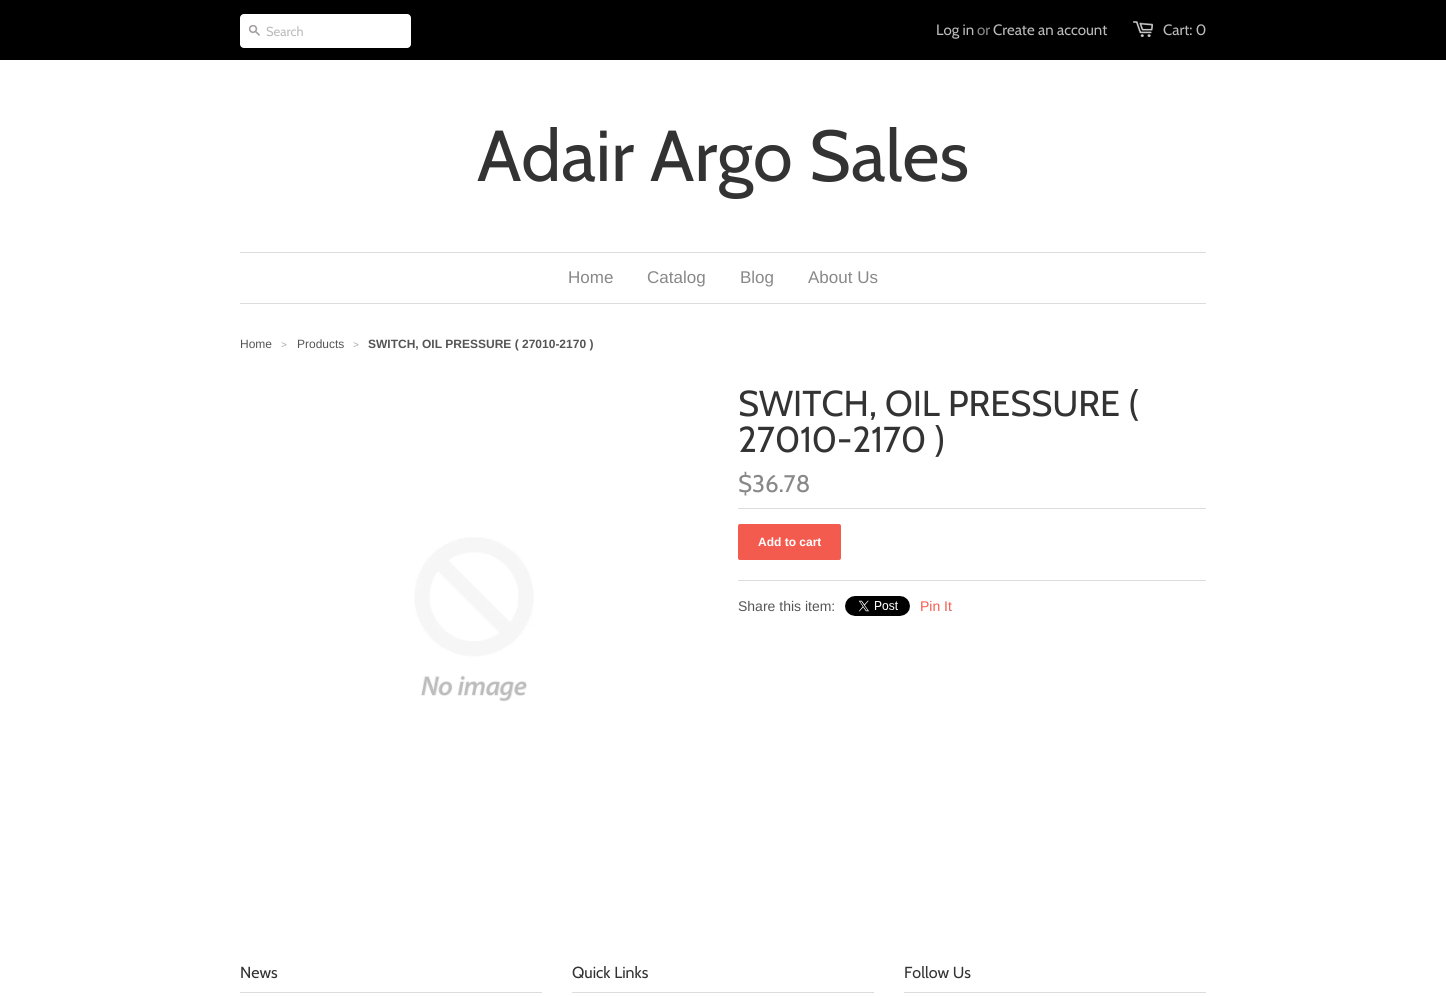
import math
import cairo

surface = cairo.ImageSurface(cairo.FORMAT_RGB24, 1446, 996)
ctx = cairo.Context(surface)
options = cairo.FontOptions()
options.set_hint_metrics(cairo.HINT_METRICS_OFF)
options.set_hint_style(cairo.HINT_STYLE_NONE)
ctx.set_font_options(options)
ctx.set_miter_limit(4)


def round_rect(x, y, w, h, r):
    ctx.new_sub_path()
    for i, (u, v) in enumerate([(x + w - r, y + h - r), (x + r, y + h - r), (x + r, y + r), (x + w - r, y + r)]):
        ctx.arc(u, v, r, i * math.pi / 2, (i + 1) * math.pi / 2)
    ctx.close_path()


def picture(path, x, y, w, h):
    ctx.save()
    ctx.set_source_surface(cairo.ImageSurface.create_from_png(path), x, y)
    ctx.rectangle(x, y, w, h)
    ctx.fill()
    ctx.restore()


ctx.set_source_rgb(1, 1, 1)
ctx.paint()
ctx.set_source_rgb(0, 0, 0)
ctx.rectangle(0, 0, 1446, 60)
ctx.fill()
ctx.set_source_rgb(1, 1, 1)
round_rect(240, 14, 171, 34, 4)
ctx.fill()
picture("img1.png", 249, 25, 11, 11)
ctx.select_font_face("Cabin")
ctx.set_font_size(13)
ctx.set_source_rgb(0.733, 0.733, 0.733)
ctx.move_to(266, 36)
ctx.show_text("Search")
ctx.set_font_size(15)
ctx.move_to(936, 35)
ctx.show_text("Log in")
ctx.set_source_rgb(0.533, 0.533, 0.533)
ctx.move_to(977, 35)
ctx.show_text("or")
ctx.set_source_rgb(0.733, 0.733, 0.733)
ctx.move_to(993, 35)
ctx.show_text("Create an account")
picture("img2.png", 1133, 21, 20, 16)
ctx.move_to(1163, 35)
ctx.show_text("Cart: 0")
ctx.set_font_size(72)
ctx.set_source_rgb(0.2, 0.2, 0.2)
ctx.move_to(477, 181)
ctx.show_text("Adair Argo Sales")
ctx.set_source_rgb(0.867, 0.867, 0.867)
ctx.rectangle(240, 252, 966, 1)
ctx.fill()
ctx.rectangle(240, 303, 966, 1)
ctx.fill()
ctx.select_font_face("Liberation Sans")
ctx.set_font_size(17)
ctx.set_source_rgb(0.533, 0.533, 0.533)
ctx.move_to(568, 283)
ctx.show_text("Home")
ctx.move_to(647, 283)
ctx.show_text("Catalog")
ctx.move_to(740, 283)
ctx.show_text("Blog")
ctx.move_to(808, 283)
ctx.show_text("About Us")
ctx.set_font_size(12)
ctx.set_source_rgb(0.333, 0.333, 0.333)
ctx.move_to(240, 348)
ctx.show_text("Home")
ctx.set_font_size(10)
ctx.set_source_rgb(0.667, 0.667, 0.667)
ctx.move_to(281, 348)
ctx.show_text(">")
ctx.set_font_size(12)
ctx.set_source_rgb(0.333, 0.333, 0.333)
ctx.move_to(297, 348)
ctx.show_text("Products")
ctx.set_font_size(10)
ctx.set_source_rgb(0.667, 0.667, 0.667)
ctx.move_to(353, 348)
ctx.show_text(">")
ctx.select_font_face("Liberation Sans", cairo.FONT_SLANT_NORMAL, cairo.FONT_WEIGHT_BOLD)
ctx.set_font_size(12)
ctx.set_source_rgb(0.333, 0.333, 0.333)
ctx.move_to(368, 348)
ctx.show_text("SWITCH, OIL PRESSURE ( 27010-2170 )")
picture("img3.png", 414, 537, 120, 165)
ctx.select_font_face("Cabin")
ctx.set_font_size(36)
ctx.set_source_rgb(0.2, 0.2, 0.2)
ctx.move_to(738, 416)
ctx.show_text("SWITCH, OIL PRESSURE (")
ctx.move_to(738, 452)
ctx.show_text("27010-2170 )")
ctx.set_font_size(24)
ctx.set_source_rgb(0.533, 0.533, 0.533)
ctx.move_to(738, 492)
ctx.show_text("$36.78")
ctx.set_source_rgb(0.867, 0.867, 0.867)
ctx.rectangle(738, 508, 468, 1)
ctx.fill()
ctx.rectangle(738, 580, 468, 1)
ctx.fill()
ctx.set_source_rgb(0.957, 0.357, 0.31)
round_rect(738, 524, 103, 36, 2)
ctx.fill()
ctx.select_font_face("Liberation Sans", cairo.FONT_SLANT_NORMAL, cairo.FONT_WEIGHT_BOLD)
ctx.set_font_size(12)
ctx.set_source_rgb(1, 1, 1)
ctx.move_to(758, 546)
ctx.show_text("Add to cart")
ctx.select_font_face("Liberation Sans")
ctx.set_font_size(14)
ctx.set_source_rgb(0.333, 0.333, 0.333)
ctx.move_to(738, 611)
ctx.show_text("Share this item:")
picture("img4.png", 845, 596, 65, 20)
ctx.set_source_rgb(0.957, 0.357, 0.31)
ctx.move_to(920, 611)
ctx.show_text("Pin It")
ctx.set_source_rgb(0.867, 0.867, 0.867)
ctx.rectangle(240, 992, 302, 1)
ctx.fill()
ctx.select_font_face("Cabin")
ctx.set_font_size(16)
ctx.set_source_rgb(0.2, 0.2, 0.2)
ctx.move_to(240, 978)
ctx.show_text("News")
ctx.set_source_rgb(0.867, 0.867, 0.867)
ctx.rectangle(572, 992, 302, 1)
ctx.fill()
ctx.set_source_rgb(0.2, 0.2, 0.2)
ctx.move_to(572, 978)
ctx.show_text("Quick Links")
ctx.set_source_rgb(0.867, 0.867, 0.867)
ctx.rectangle(904, 992, 302, 1)
ctx.fill()
ctx.set_source_rgb(0.2, 0.2, 0.2)
ctx.move_to(904, 978)
ctx.show_text("Follow Us")
surface.write_to_png("page.png")
